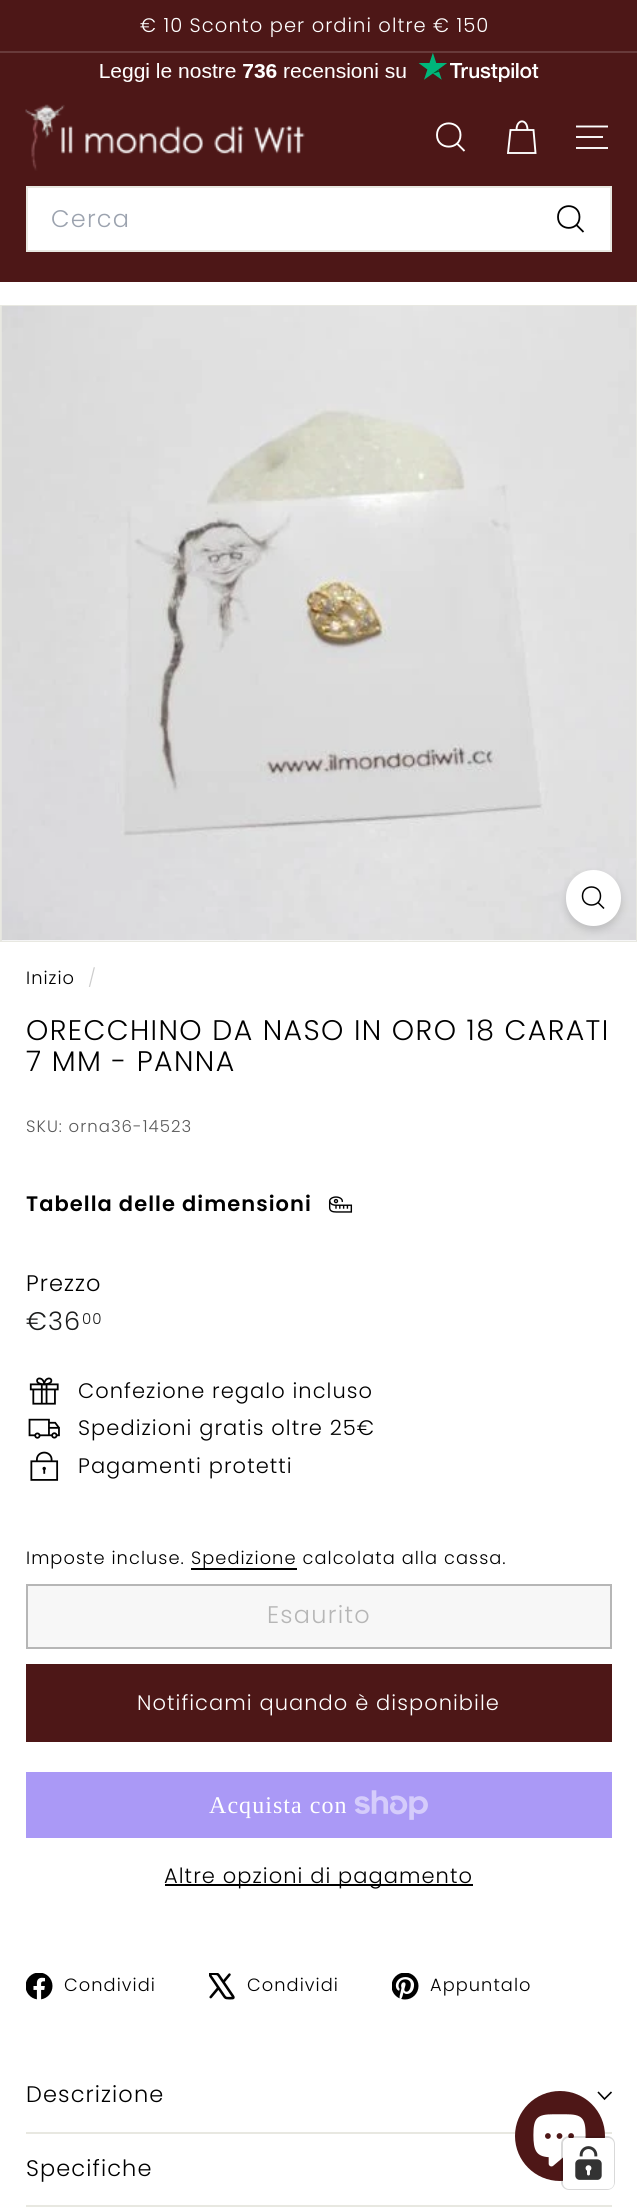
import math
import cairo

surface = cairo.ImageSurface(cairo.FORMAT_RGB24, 637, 2212)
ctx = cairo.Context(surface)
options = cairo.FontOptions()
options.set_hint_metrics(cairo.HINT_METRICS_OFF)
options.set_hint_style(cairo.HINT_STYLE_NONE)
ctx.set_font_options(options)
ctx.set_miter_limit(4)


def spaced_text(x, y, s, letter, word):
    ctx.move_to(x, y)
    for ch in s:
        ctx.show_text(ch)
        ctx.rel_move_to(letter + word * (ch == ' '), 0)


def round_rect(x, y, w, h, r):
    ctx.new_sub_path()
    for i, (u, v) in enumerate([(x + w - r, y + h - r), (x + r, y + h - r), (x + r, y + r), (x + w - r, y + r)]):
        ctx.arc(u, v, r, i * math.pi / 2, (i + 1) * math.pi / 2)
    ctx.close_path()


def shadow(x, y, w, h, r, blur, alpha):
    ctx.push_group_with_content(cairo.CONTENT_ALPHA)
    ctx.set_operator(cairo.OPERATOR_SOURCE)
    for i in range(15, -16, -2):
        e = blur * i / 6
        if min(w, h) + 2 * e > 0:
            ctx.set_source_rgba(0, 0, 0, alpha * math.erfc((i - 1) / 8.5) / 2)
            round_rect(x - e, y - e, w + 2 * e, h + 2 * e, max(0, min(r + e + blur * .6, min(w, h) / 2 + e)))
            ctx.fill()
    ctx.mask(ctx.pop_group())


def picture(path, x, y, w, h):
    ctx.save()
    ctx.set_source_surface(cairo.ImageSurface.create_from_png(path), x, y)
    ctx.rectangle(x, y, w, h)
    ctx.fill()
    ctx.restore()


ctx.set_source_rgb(1, 1, 1)
ctx.paint()
ctx.set_source_rgb(0.302, 0.09, 0.09)
ctx.rectangle(0, 0, 637, 51)
ctx.fill()
ctx.select_font_face("Poppins Light")
ctx.set_font_size(19.5)
ctx.set_source_rgb(1, 1, 1)
spaced_text(140, 32, "€ 10 Sconto per ordini oltre € 150", 1.05, 0)
ctx.set_source_rgb(0.408, 0.227, 0.227)
ctx.rectangle(0, 51, 637, 2)
ctx.fill()
ctx.set_source_rgb(0.302, 0.09, 0.09)
ctx.rectangle(0, 53, 637, 229)
ctx.fill()
picture("img1.png", 100, 53, 439, 29)
picture("img2.png", 25, 104, 280, 67)
ctx.new_path()
ctx.move_to(460.5, 135)
ctx.curve_to(460.5, 150.5, 437, 150.5, 437, 135)
ctx.curve_to(437, 119.5, 460.5, 119.5, 460.5, 135)
ctx.move_to(464.5, 151)
ctx.line_to(457, 143.5)
ctx.set_source_rgb(1, 1, 1)
ctx.set_line_width(1.9)
ctx.stroke()
ctx.new_path()
ctx.move_to(516.5, 130)
ctx.curve_to(516.5, 118.5, 527.5, 118.5, 527.5, 130)
ctx.move_to(510.5, 130)
ctx.line_to(533.5, 130)
ctx.line_to(535.5, 153)
ctx.line_to(508, 153)
ctx.close_path()
ctx.stroke()
ctx.new_path()
ctx.move_to(576, 126.5)
ctx.line_to(608, 126.5)
ctx.stroke()
ctx.set_source_rgb(0.965, 0.953, 0.953)
ctx.rectangle(576, 136, 27, 2)
ctx.fill()
ctx.rectangle(576, 147, 32, 2)
ctx.fill()
ctx.set_source_rgb(1, 1, 1)
ctx.rectangle(27, 187, 584, 64)
ctx.fill_preserve()
ctx.set_source_rgb(0.91, 0.91, 0.882)
ctx.set_line_width(2)
ctx.stroke()
ctx.set_font_size(24)
ctx.set_source_rgb(0.612, 0.639, 0.686)
spaced_text(51, 227, "Cerca", 1.25, 0)
ctx.new_path()
ctx.move_to(579.5, 217)
ctx.curve_to(579.5, 231.5, 558, 231.5, 558, 217)
ctx.curve_to(558, 202.5, 579.5, 202.5, 579.5, 217)
ctx.move_to(583.5, 232)
ctx.line_to(576.5, 225)
ctx.set_source_rgb(0, 0, 0)
ctx.set_line_width(1.8)
ctx.stroke()
ctx.rectangle(1, 306, 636, 635)
ctx.set_source_rgb(0.91, 0.91, 0.882)
ctx.set_line_width(2)
ctx.stroke()
ctx.set_source_rgb(1, 1, 1)
ctx.rectangle(2, 940, 634, 1)
ctx.fill()
picture("img3.png", 1, 306, 635, 635)
ctx.set_source_rgb(0, 0, 0)
shadow(566, 875, 55, 55, 27.5, 4.5, 0.15)
ctx.set_source_rgb(1, 1, 1)
round_rect(566, 870, 55, 56, 27.5)
ctx.fill()
ctx.new_path()
ctx.move_to(600.5, 896)
ctx.curve_to(600.5, 908, 582.5, 908, 582.5, 896)
ctx.curve_to(582.5, 884, 600.5, 884, 600.5, 896)
ctx.move_to(604, 908.5)
ctx.line_to(598, 902.5)
ctx.set_source_rgb(0, 0, 0)
ctx.set_line_width(1.5)
ctx.stroke()
ctx.set_font_size(17.8)
spaced_text(26, 984, "Inizio", 1.05, 0)
ctx.set_source_rgb(0.8, 0.8, 0.8)
spaced_text(88, 984, "/", 1.05, 0)
ctx.set_font_size(28.35)
ctx.set_source_rgb(0, 0, 0)
spaced_text(26, 1040, "ORECCHINO DA NASO IN ORO 18 CARATI", 1.4, 0)
spaced_text(26, 1071, "7 MM - PANNA", 1.4, 0)
ctx.set_font_size(16.5)
ctx.set_source_rgb(0.349, 0.349, 0.349)
spaced_text(26, 1132, "SKU: orna36-14523", 1.05, 0)
ctx.select_font_face("Poppins SemiBold")
ctx.set_font_size(21)
ctx.set_source_rgb(0, 0, 0)
spaced_text(26, 1211, "Tabella delle dimensioni", 1.05, 0)
picture("img4.png", 328, 1196, 25, 17)
ctx.select_font_face("Poppins Light")
ctx.set_font_size(22.5)
spaced_text(26, 1291, "Prezzo", 1.05, 0)
ctx.set_font_size(25.5)
ctx.set_source_rgb(0.11, 0.114, 0.114)
spaced_text(26, 1330, "€36", 1.05, 0)
ctx.set_font_size(15)
spaced_text(82, 1324, "00", 1.05, 0)
picture("img5.png", 29, 1377, 30, 28)
ctx.set_font_size(21)
ctx.set_source_rgb(0, 0, 0)
spaced_text(78, 1398, "Confezione regalo incluso", 1.05, 0)
picture("img6.png", 28, 1418, 32, 21)
spaced_text(78, 1435, "Spedizioni gratis oltre 25€", 1.05, 0)
picture("img7.png", 30, 1451, 29, 30)
spaced_text(78, 1473, "Pagamenti protetti", 1.05, 0)
ctx.set_font_size(17.8)
spaced_text(26, 1564, "Imposte incluse.", 1.05, 0)
ctx.rectangle(191, 1568, 106, 2)
ctx.fill()
spaced_text(191, 1564, "Spedizione calcolata alla cassa.", 1.05, 0)
ctx.set_source_rgb(0.965, 0.965, 0.965)
ctx.rectangle(27, 1585, 584, 63)
ctx.fill_preserve()
ctx.set_source_rgb(0.714, 0.714, 0.714)
ctx.set_line_width(2)
ctx.stroke()
ctx.set_font_size(24)
spaced_text(267, 1623, "Esaurito", 1.25, 0)
ctx.set_source_rgb(0.302, 0.09, 0.09)
ctx.rectangle(26, 1664, 586, 78)
ctx.fill()
ctx.set_font_size(21)
ctx.set_source_rgb(1, 1, 1)
spaced_text(137, 1710, "Notificami quando è disponibile", 1.05, 0)
ctx.set_source_rgb(0.667, 0.6, 0.961)
ctx.rectangle(26, 1772, 586, 66)
ctx.fill()
ctx.select_font_face("Liberation Serif")
ctx.set_font_size(24)
ctx.set_source_rgb(1, 1, 1)
spaced_text(209, 1813, "Acquista con", 1.05, 0)
picture("img8.png", 354, 1790, 74, 30)
ctx.set_source_rgb(0, 0, 0)
ctx.rectangle(165, 1884, 308, 2)
ctx.fill()
ctx.select_font_face("Poppins Light")
ctx.set_font_size(21)
spaced_text(164, 1883, "Altre opzioni di pagamento", 1.05, 0)
picture("img9.png", 26, 1973, 27, 27)
ctx.set_font_size(17.8)
spaced_text(64, 1991, "Condividi", 1.05, 0)
picture("img10.png", 209, 1973, 26, 27)
spaced_text(247, 1991, "Condividi", 1.05, 0)
picture("img11.png", 392, 1973, 27, 27)
spaced_text(430, 1991, "Appuntalo", 1.05, 0)
ctx.set_source_rgb(0.91, 0.91, 0.882)
ctx.rectangle(26, 2132, 586, 2)
ctx.fill()
ctx.set_font_size(22.5)
ctx.set_source_rgb(0, 0, 0)
spaced_text(26, 2102, "Descrizione", 1.1, 0)
ctx.new_path()
ctx.move_to(598, 2092)
ctx.line_to(604.5, 2099)
ctx.line_to(611.5, 2092)
ctx.set_line_width(1.6)
ctx.stroke()
ctx.set_source_rgb(0.91, 0.91, 0.882)
ctx.rectangle(26, 2205, 586, 2)
ctx.fill()
ctx.set_source_rgb(0, 0, 0)
spaced_text(26, 2176, "Specifiche", 1.1, 0)
ctx.set_source_rgb(0.306, 0.09, 0.09)
ctx.new_path()
ctx.arc(560, 2136, 45, 0, 2 * math.pi)
ctx.fill()
picture("img12.png", 533, 2114, 53, 53)
round_rect(562, 2137, 52, 52, 7)
ctx.set_source_rgba(0, 0, 0, 0.15)
ctx.set_line_width(2)
ctx.stroke()
ctx.set_source_rgb(1, 1, 1)
round_rect(563, 2138, 51, 51, 6)
ctx.fill()
picture("img13.png", 575, 2146, 27, 34)
surface.write_to_png("page.png")
